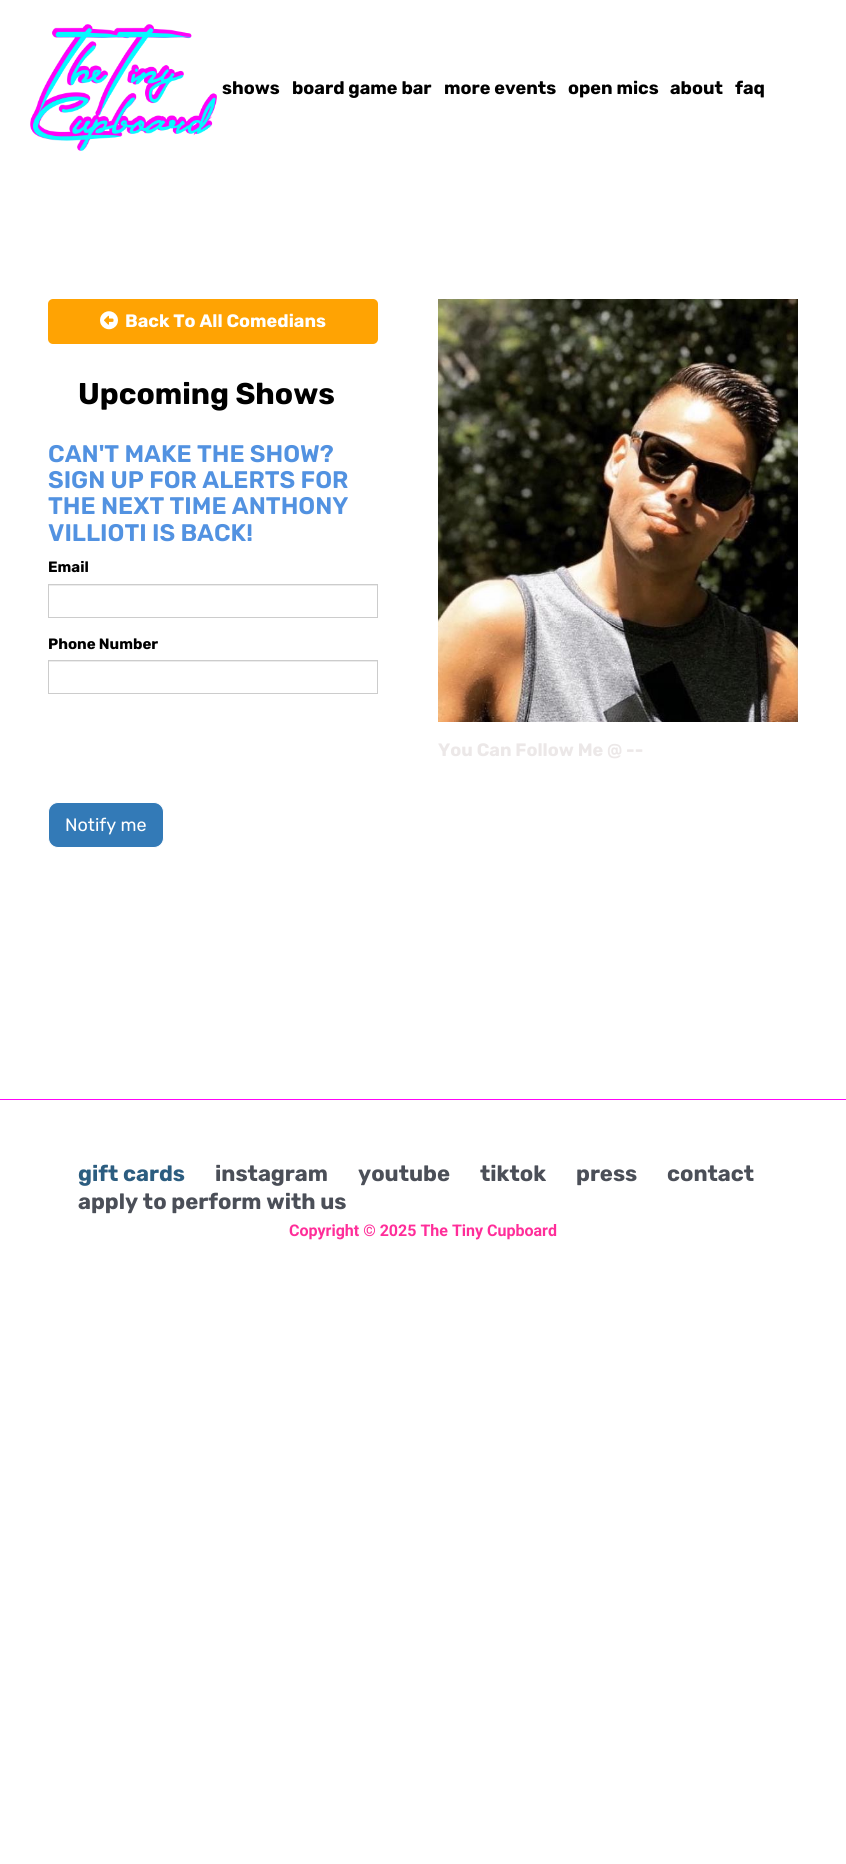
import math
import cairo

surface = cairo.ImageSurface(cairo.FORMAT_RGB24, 846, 1864)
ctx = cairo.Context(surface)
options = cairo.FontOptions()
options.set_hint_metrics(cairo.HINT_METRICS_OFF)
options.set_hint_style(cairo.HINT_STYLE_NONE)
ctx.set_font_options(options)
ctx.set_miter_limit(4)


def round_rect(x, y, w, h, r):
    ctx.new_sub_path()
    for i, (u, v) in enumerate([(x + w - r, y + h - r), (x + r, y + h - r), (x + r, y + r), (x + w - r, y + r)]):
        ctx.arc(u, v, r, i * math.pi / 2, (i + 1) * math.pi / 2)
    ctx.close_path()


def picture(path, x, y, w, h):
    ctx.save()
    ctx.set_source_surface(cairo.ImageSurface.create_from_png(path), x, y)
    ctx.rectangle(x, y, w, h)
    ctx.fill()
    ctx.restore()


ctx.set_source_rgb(1, 1, 1)
ctx.paint()
picture("img1.png", 30, 24, 187, 127)
ctx.select_font_face("Rubik", cairo.FONT_SLANT_NORMAL, cairo.FONT_WEIGHT_BOLD)
ctx.set_font_size(18)
ctx.set_source_rgb(0, 0, 0)
ctx.move_to(222, 94)
ctx.show_text("shows")
ctx.move_to(292, 94)
ctx.show_text("board game bar")
ctx.move_to(444, 94)
ctx.show_text("more events")
ctx.move_to(568, 94)
ctx.show_text("open mics")
ctx.move_to(670, 94)
ctx.show_text("about")
ctx.move_to(735, 94)
ctx.show_text("faq")
ctx.set_source_rgb(1, 0.639, 0.012)
round_rect(48, 299, 330, 45, 5)
ctx.fill()
picture("img2.png", 100, 311, 18, 19)
ctx.set_source_rgb(1, 1, 1)
ctx.move_to(125, 327)
ctx.show_text("Back To All Comedians")
ctx.set_font_size(30)
ctx.set_source_rgb(0, 0, 0)
ctx.move_to(78, 404)
ctx.show_text("Upcoming Shows")
ctx.select_font_face("Rubik SemiBold")
ctx.set_font_size(24)
ctx.set_source_rgb(0.322, 0.573, 0.882)
ctx.move_to(48, 462)
ctx.show_text("CAN'T MAKE THE SHOW?")
ctx.move_to(48, 488)
ctx.show_text("SIGN UP FOR ALERTS FOR")
ctx.move_to(48, 514)
ctx.show_text("THE NEXT TIME ANTHONY")
ctx.move_to(48, 541)
ctx.show_text("VILLIOTI IS BACK!")
ctx.select_font_face("Rubik", cairo.FONT_SLANT_NORMAL, cairo.FONT_WEIGHT_BOLD)
ctx.set_font_size(15)
ctx.set_source_rgb(0, 0, 0)
ctx.move_to(48, 572)
ctx.show_text("Email")
ctx.set_source_rgb(0.925, 0.925, 0.925)
ctx.rectangle(49, 585, 328, 1)
ctx.fill()
ctx.rectangle(48.5, 584.5, 329, 33)
ctx.set_source_rgb(0.8, 0.8, 0.8)
ctx.set_line_width(1)
ctx.stroke()
ctx.set_source_rgb(0, 0, 0)
ctx.move_to(48, 649)
ctx.show_text("Phone Number")
ctx.set_source_rgb(0.925, 0.925, 0.925)
ctx.rectangle(49, 661, 328, 1)
ctx.fill()
ctx.rectangle(48.5, 660.5, 329, 33)
ctx.set_source_rgb(0.8, 0.8, 0.8)
ctx.stroke()
ctx.set_source_rgb(0.2, 0.478, 0.718)
round_rect(48.5, 802.5, 115, 45, 9.5)
ctx.fill_preserve()
ctx.set_source_rgb(1, 1, 1)
ctx.stroke()
ctx.select_font_face("Rubik")
ctx.set_font_size(18)
ctx.move_to(65, 831)
ctx.show_text("Notify me")
picture("img3.png", 438, 299, 360, 423)
ctx.select_font_face("Rubik", cairo.FONT_SLANT_NORMAL, cairo.FONT_WEIGHT_BOLD)
ctx.set_source_rgb(0.922, 0.91, 0.91)
ctx.move_to(438, 756)
ctx.show_text("You Can Follow Me @ --")
ctx.set_source_rgb(1, 0.012, 0.976)
ctx.rectangle(0, 1099, 846, 1)
ctx.fill()
ctx.set_font_size(22)
ctx.set_source_rgb(0.173, 0.365, 0.502)
ctx.move_to(78, 1181)
ctx.show_text("gift cards")
ctx.set_source_rgb(0.294, 0.31, 0.345)
ctx.move_to(215, 1181)
ctx.show_text("instagram")
ctx.move_to(358, 1181)
ctx.show_text("youtube")
ctx.move_to(480, 1181)
ctx.show_text("tiktok")
ctx.move_to(576, 1181)
ctx.show_text("press")
ctx.move_to(667, 1181)
ctx.show_text("contact")
ctx.move_to(78, 1209)
ctx.show_text("apply to perform with us")
ctx.select_font_face("Roboto", cairo.FONT_SLANT_NORMAL, cairo.FONT_WEIGHT_BOLD)
ctx.set_font_size(16)
ctx.set_source_rgb(1, 0.176, 0.6)
ctx.move_to(289, 1236)
ctx.show_text("Copyright © 2025 The Tiny Cupboard")
surface.write_to_png("page.png")
